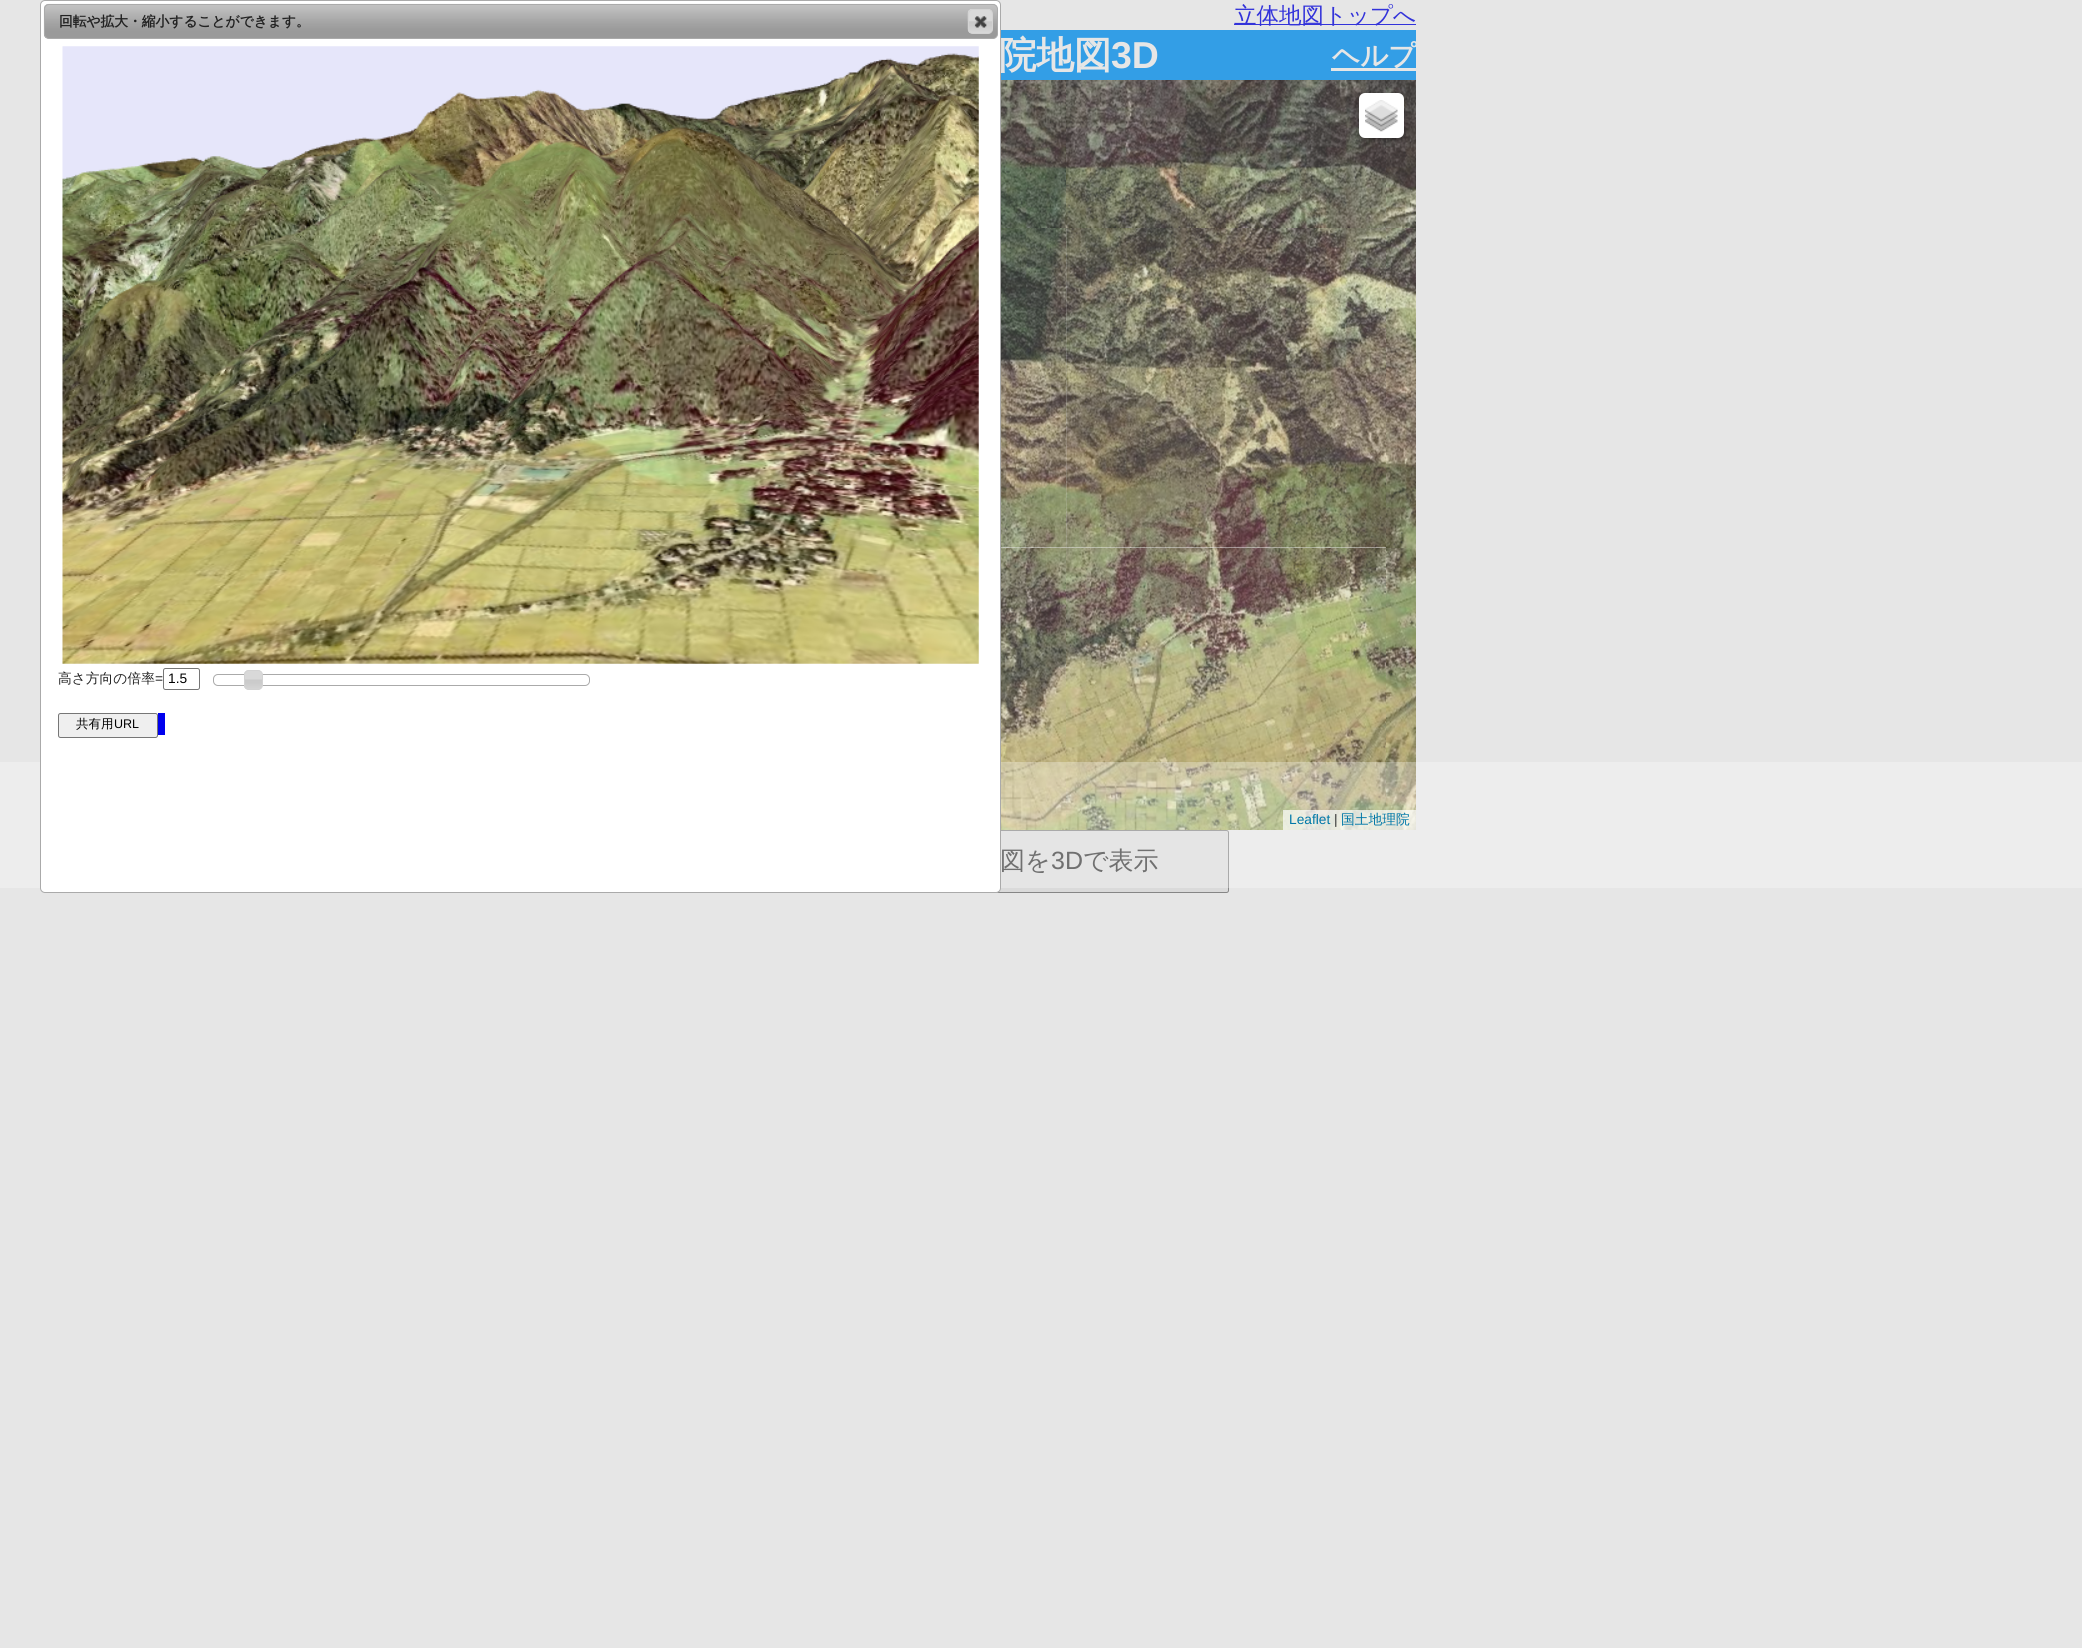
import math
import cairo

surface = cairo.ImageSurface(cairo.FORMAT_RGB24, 2082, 1648)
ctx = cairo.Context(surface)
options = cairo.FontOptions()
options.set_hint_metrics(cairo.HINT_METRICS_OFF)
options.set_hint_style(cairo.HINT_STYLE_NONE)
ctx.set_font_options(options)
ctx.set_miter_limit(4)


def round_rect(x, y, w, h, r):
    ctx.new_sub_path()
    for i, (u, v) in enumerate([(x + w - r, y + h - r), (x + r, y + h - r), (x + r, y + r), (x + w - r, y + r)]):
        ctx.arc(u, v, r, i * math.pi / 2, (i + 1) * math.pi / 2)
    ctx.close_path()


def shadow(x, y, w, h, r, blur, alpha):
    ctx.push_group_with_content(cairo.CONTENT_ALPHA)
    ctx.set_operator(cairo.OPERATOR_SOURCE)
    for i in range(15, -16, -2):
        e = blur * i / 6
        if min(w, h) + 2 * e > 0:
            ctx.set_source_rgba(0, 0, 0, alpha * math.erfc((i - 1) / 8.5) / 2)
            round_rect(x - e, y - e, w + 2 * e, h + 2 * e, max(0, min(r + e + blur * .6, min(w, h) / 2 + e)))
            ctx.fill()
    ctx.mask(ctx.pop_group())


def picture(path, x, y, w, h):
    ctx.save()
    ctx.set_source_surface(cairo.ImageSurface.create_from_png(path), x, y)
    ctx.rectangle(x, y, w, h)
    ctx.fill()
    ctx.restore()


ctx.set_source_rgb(0.902, 0.902, 0.902)
ctx.paint()
ctx.set_source_rgb(0.2, 0.62, 0.902)
ctx.rectangle(1001, 30, 415, 50)
ctx.fill()
ctx.select_font_face("WenQuanYi Zen Hei", cairo.FONT_SLANT_NORMAL, cairo.FONT_WEIGHT_BOLD)
ctx.set_font_size(37.5)
ctx.set_source_rgb(0.902, 0.902, 0.902)
ctx.move_to(999, 68)
ctx.show_text("院地図")
picture("img13.png", 1001, 548, 65, 282)
picture("img14.png", 1066, 548, 320, 282)
picture("img15.png", 1386, 548, 30, 282)
ctx.set_source_rgb(0.855, 0.855, 0.855)
round_rect(854.5, 830.5, 374, 62, 2)
ctx.fill_preserve()
ctx.set_source_rgb(0.525, 0.525, 0.525)
ctx.set_line_width(1)
ctx.stroke()
ctx.select_font_face("WenQuanYi Zen Hei Medium")
ctx.set_font_size(25)
ctx.set_source_rgb(0.2, 0.2, 0.2)
ctx.move_to(1000, 869)
ctx.show_text("図を")
ctx.select_font_face("Liberation Sans")
ctx.move_to(1051, 869)
ctx.show_text("3D")
ctx.select_font_face("WenQuanYi Zen Hei Medium")
ctx.move_to(1083, 869)
ctx.show_text("で表示")
ctx.set_source_rgba(1, 1, 1, 0.3)
ctx.rectangle(0, 762, 2082, 126)
ctx.fill()
ctx.set_source_rgb(1, 1, 1)
round_rect(40.5, 0.5, 960, 892, 4.5)
ctx.fill_preserve()
ctx.set_source_rgb(0.667, 0.667, 0.667)
ctx.stroke()
picture("img10.png", 1001, 228, 66, 320)
picture("img1.png", 1001, 384, 1, 125)
picture("img2.png", 43, 3, 955, 36)
round_rect(44.5, 4.5, 953, 34, 4.5)
ctx.stroke()
ctx.select_font_face("WenQuanYi Zen Hei", cairo.FONT_SLANT_NORMAL, cairo.FONT_WEIGHT_BOLD)
ctx.set_font_size(13.75)
ctx.set_source_rgb(0.133, 0.133, 0.133)
ctx.move_to(59, 26)
ctx.show_text("回転や拡大・縮小することができます。")
picture("img3.png", 967, 9, 26, 25)
round_rect(968.5, 9.5, 24, 24, 4.5)
ctx.set_source_rgb(0.827, 0.827, 0.827)
ctx.stroke()
picture("img4.png", 974, 16, 13, 12)
picture("img5.png", 62, 46, 917, 618)
ctx.select_font_face("WenQuanYi Zen Hei Medium")
ctx.set_source_rgb(0.133, 0.133, 0.133)
ctx.move_to(58, 683)
ctx.show_text("高さ方向の倍率")
ctx.select_font_face("Liberation Sans")
ctx.move_to(155, 683)
ctx.show_text("=")
round_rect(163.5, 668.5, 36, 21, 2)
ctx.set_source_rgb(0.463, 0.463, 0.463)
ctx.stroke()
ctx.set_source_rgb(0, 0, 0)
ctx.move_to(168, 683)
ctx.show_text("1.5")
round_rect(213.5, 674.5, 376, 11, 4.5)
ctx.set_source_rgb(0.667, 0.667, 0.667)
ctx.stroke()
picture("img6.png", 244, 670, 19, 20)
round_rect(244.5, 670.5, 18, 19, 4.5)
ctx.set_source_rgb(0.827, 0.827, 0.827)
ctx.stroke()
ctx.set_source_rgb(0.937, 0.937, 0.937)
round_rect(58.5, 713.5, 99, 24, 2)
ctx.fill_preserve()
ctx.set_source_rgb(0.463, 0.463, 0.463)
ctx.stroke()
ctx.select_font_face("WenQuanYi Zen Hei Medium")
ctx.set_font_size(12.5)
ctx.set_source_rgb(0, 0, 0)
ctx.move_to(76, 728)
ctx.show_text("共有用")
ctx.select_font_face("Liberation Sans")
ctx.move_to(114, 728)
ctx.show_text("URL")
ctx.set_source_rgb(0, 0, 0.933)
ctx.rectangle(158, 713, 7, 22)
ctx.fill()
ctx.set_source_rgb(0.2, 0.2, 0.855)
ctx.rectangle(1234, 24, 182, 1)
ctx.fill()
ctx.select_font_face("WenQuanYi Zen Hei Medium")
ctx.set_font_size(22.5)
ctx.move_to(1234, 23)
ctx.show_text("立体地図トップへ")
ctx.select_font_face("Liberation Sans", cairo.FONT_SLANT_NORMAL, cairo.FONT_WEIGHT_BOLD)
ctx.set_font_size(37.5)
ctx.set_source_rgb(0.902, 0.902, 0.902)
ctx.move_to(1111, 68)
ctx.show_text("3D")
ctx.rectangle(1331, 68, 85, 3)
ctx.fill()
ctx.select_font_face("WenQuanYi Zen Hei", cairo.FONT_SLANT_NORMAL, cairo.FONT_WEIGHT_BOLD)
ctx.set_font_size(27.5)
ctx.move_to(1332, 65)
ctx.show_text("ヘルプ")
picture("img7.png", 1001, 80, 65, 148)
picture("img8.png", 1066, 80, 320, 148)
picture("img9.png", 1386, 80, 30, 148)
picture("img11.png", 1066, 228, 320, 320)
picture("img12.png", 1386, 228, 30, 320)
ctx.set_source_rgb(0, 0, 0)
shadow(1359, 94, 45, 45, 6, 3, 0.4)
ctx.set_source_rgb(1, 1, 1)
round_rect(1359, 93, 45, 45, 6)
ctx.fill()
picture("img16.png", 1365, 100, 33, 32)
ctx.set_source_rgba(1, 1, 1, 0.7)
ctx.rectangle(1283, 810, 133, 20)
ctx.fill()
ctx.select_font_face("Liberation Sans")
ctx.set_font_size(13.75)
ctx.set_source_rgb(0, 0.471, 0.659)
ctx.move_to(1289, 824)
ctx.show_text("Leaflet")
ctx.set_source_rgb(0.2, 0.2, 0.2)
ctx.move_to(1334, 824)
ctx.show_text("|")
ctx.select_font_face("WenQuanYi Zen Hei Medium")
ctx.set_source_rgb(0, 0.471, 0.659)
ctx.move_to(1341, 824)
ctx.show_text("国土地理院")
surface.write_to_png("page.png")
